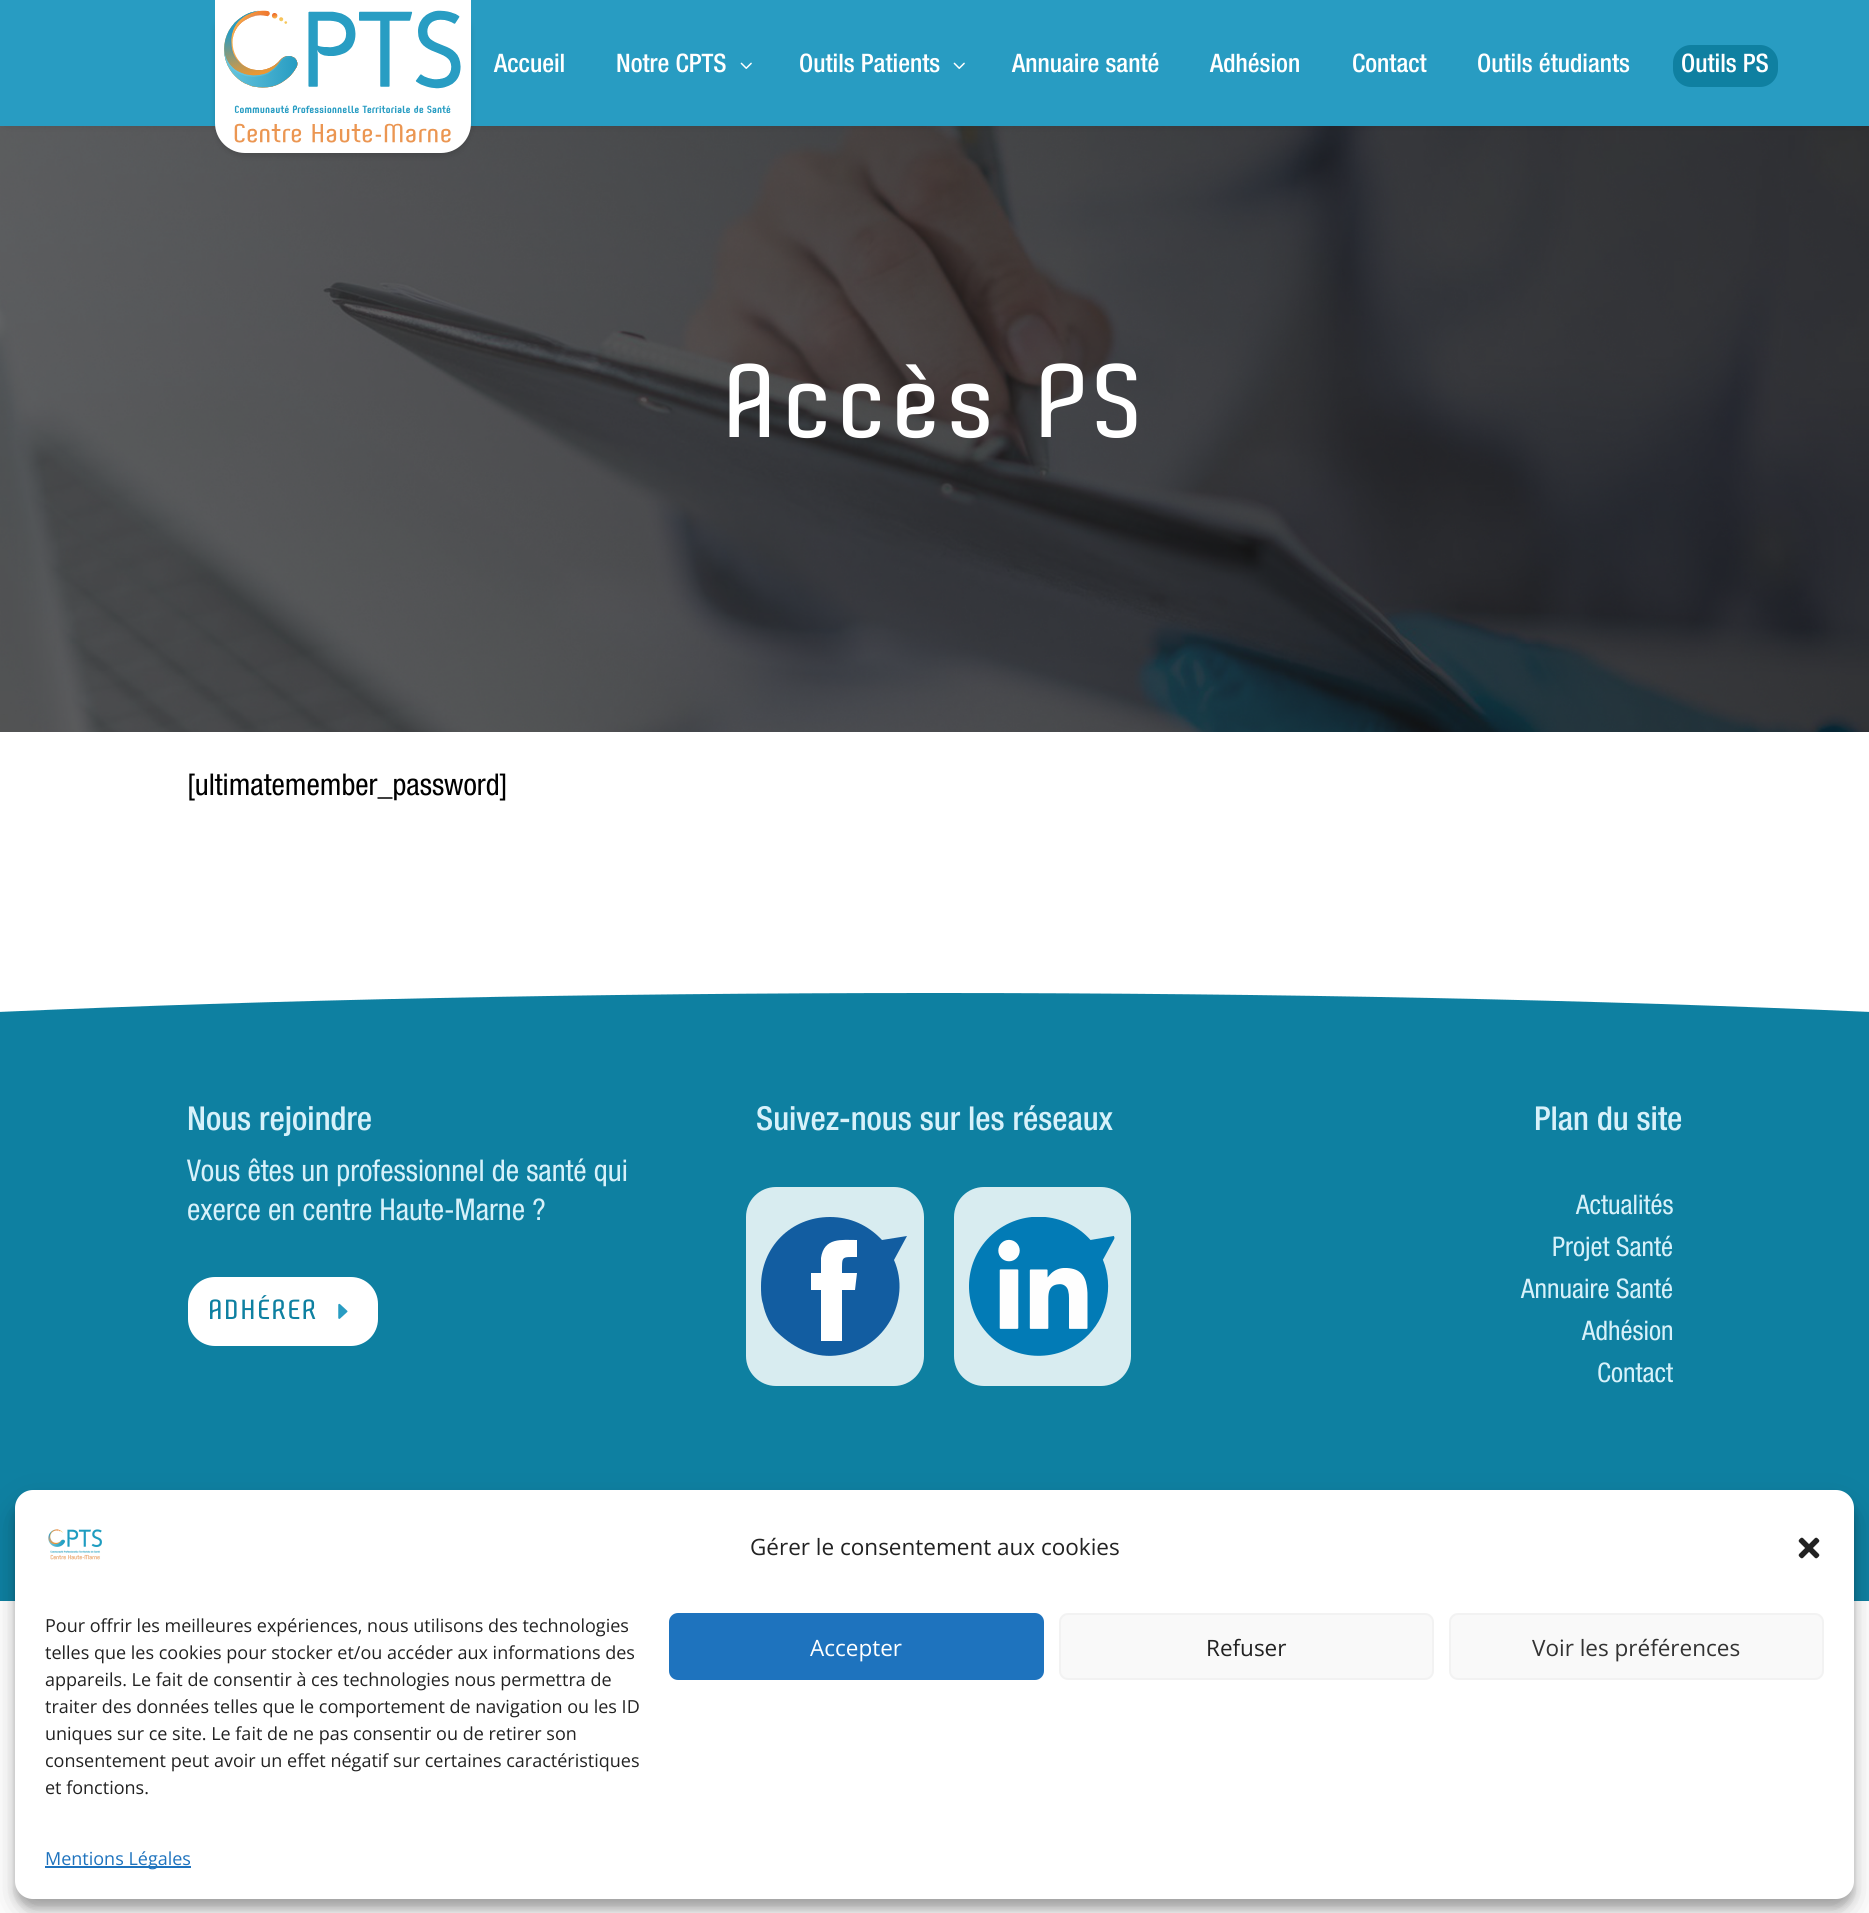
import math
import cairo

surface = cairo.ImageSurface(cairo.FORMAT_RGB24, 1869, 1913)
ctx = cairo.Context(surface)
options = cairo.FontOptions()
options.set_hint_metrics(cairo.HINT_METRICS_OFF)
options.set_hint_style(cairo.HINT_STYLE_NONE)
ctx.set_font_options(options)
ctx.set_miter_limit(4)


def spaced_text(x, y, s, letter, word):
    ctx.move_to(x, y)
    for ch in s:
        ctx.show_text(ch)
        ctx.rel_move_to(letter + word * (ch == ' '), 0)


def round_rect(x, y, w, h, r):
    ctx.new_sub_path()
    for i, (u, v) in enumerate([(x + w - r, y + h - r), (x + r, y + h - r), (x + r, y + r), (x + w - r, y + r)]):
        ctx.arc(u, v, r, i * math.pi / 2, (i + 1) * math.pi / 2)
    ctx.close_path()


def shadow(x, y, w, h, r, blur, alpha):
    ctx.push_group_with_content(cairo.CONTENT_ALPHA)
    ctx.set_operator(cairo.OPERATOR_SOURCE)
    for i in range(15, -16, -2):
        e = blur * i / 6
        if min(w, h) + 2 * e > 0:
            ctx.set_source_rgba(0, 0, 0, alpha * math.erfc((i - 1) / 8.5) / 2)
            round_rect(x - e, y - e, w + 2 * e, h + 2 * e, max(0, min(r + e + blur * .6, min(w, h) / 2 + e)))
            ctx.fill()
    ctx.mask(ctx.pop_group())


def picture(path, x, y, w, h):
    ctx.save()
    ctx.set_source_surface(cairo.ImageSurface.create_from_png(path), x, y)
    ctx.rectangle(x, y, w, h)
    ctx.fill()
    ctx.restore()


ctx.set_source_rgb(1, 1, 1)
ctx.paint()
picture("img3.png", 0, 126, 1869, 606)
ctx.set_source_rgb(0, 0, 0)
shadow(9, 11, 1851, 108, 0, 7, 0.3)
ctx.set_source_rgb(0.157, 0.612, 0.761)
ctx.rectangle(0, 0, 1869, 126)
ctx.fill()
ctx.set_source_rgb(0, 0, 0)
shadow(215, 3, 256, 153, 30, 3, 0.13)
ctx.set_source_rgb(1, 1, 1)
ctx.new_path()
ctx.move_to(215, 0)
ctx.line_to(471, 0)
ctx.line_to(471, 123)
ctx.curve_to(471, 139.5, 457.5, 153, 441, 153)
ctx.line_to(245, 153)
ctx.curve_to(228.5, 153, 215, 139.5, 215, 123)
ctx.close_path()
ctx.fill()
picture("img1.png", 224, 10, 237, 133)
ctx.select_font_face("Helvetica Neue Medium")
ctx.set_font_size(25.5)
ctx.move_to(494, 72)
ctx.show_text("Accueil")
ctx.move_to(616, 72)
ctx.show_text("Notre CPTS")
picture("img2.png", 740, 62, 12, 7)
ctx.move_to(799, 72)
ctx.show_text("Outils Patients")
picture("img2.png", 953, 62, 12, 7)
ctx.move_to(1012, 72)
ctx.show_text("Annuaire santé")
ctx.move_to(1210, 72)
ctx.show_text("Adhésion")
ctx.move_to(1352, 72)
ctx.show_text("Contact")
ctx.move_to(1477, 72)
ctx.show_text("Outils étudiants")
ctx.set_source_rgb(0.059, 0.502, 0.631)
round_rect(1673, 45, 105, 42, 18)
ctx.fill()
ctx.set_source_rgb(1, 1, 1)
ctx.move_to(1681, 72)
ctx.show_text("Outils PS")
ctx.select_font_face("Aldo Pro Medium")
ctx.set_font_size(112.5)
spaced_text(722, 437, "Accès PS", 4.5, 0)
ctx.select_font_face("Helvetica Neue")
ctx.set_font_size(30)
ctx.set_source_rgb(0, 0, 0)
ctx.move_to(187, 795)
ctx.show_text("[ultimatemember_password]")
ctx.set_source_rgb(0.055, 0.502, 0.631)
ctx.rectangle(0, 993, 1869, 608)
ctx.fill()
ctx.save()
ctx.rectangle(0, 921, 1869, 147)
ctx.clip()
ctx.set_source_rgb(1, 1, 1)
ctx.new_path()
ctx.move_to(-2, 1012)
ctx.line_to(-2, 918)
ctx.line_to(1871, 918)
ctx.line_to(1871, 1012)
ctx.curve_to(1601, 1000, 1279, 993, 934, 993)
ctx.curve_to(589, 993, 268, 1000, -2, 1012)
ctx.close_path()
ctx.fill()
ctx.restore()
ctx.select_font_face("Helvetica Neue Medium")
ctx.set_font_size(33)
ctx.set_source_rgb(0.843, 0.945, 0.98)
ctx.move_to(187, 1130)
ctx.show_text("Nous rejoindre")
ctx.select_font_face("Helvetica Neue")
ctx.set_font_size(30)
ctx.move_to(187, 1181)
ctx.show_text("Vous êtes un professionnel de santé qui")
ctx.move_to(187, 1220)
ctx.show_text("exerce en centre Haute-Marne ?")
ctx.set_source_rgb(1, 1, 1)
round_rect(188, 1277, 190, 69, 27)
ctx.fill()
ctx.select_font_face("Aldo Pro Medium")
ctx.set_source_rgb(0.055, 0.502, 0.631)
spaced_text(208, 1319, "ADHÉRER", 1.5, 0)
picture("img4.png", 338, 1303, 10, 16)
ctx.select_font_face("Helvetica Neue Medium")
ctx.set_font_size(33)
ctx.set_source_rgb(0.843, 0.945, 0.98)
ctx.move_to(756, 1130)
ctx.show_text("Suivez-nous sur les réseaux")
ctx.set_source_rgb(0.847, 0.922, 0.941)
round_rect(746, 1187, 178, 199, 30)
ctx.fill()
ctx.set_source_rgb(0.071, 0.365, 0.631)
ctx.new_path()
ctx.move_to(882, 1240)
ctx.line_to(907, 1236)
ctx.line_to(894, 1260)
ctx.curve_to(912, 1301, 884, 1349, 840, 1355)
ctx.curve_to(816, 1359, 795, 1349, 778, 1333)
ctx.curve_to(770, 1326, 765, 1314, 763, 1304)
ctx.curve_to(761, 1298, 761, 1292, 761, 1286)
ctx.curve_to(761, 1247, 791, 1217, 830, 1217)
ctx.curve_to(850, 1217, 868, 1225, 882, 1240)
ctx.close_path()
ctx.fill()
ctx.set_source_rgb(1, 1, 1)
ctx.new_path()
ctx.move_to(855, 1290)
ctx.line_to(842, 1290)
ctx.line_to(842, 1341)
ctx.line_to(821, 1341)
ctx.line_to(821, 1290)
ctx.line_to(811, 1290)
ctx.line_to(811, 1273)
ctx.line_to(821, 1273)
ctx.line_to(821, 1258)
ctx.curve_to(824, 1237, 842, 1240, 857, 1240)
ctx.line_to(857, 1257)
ctx.curve_to(841, 1257, 842, 1256, 842, 1273)
ctx.line_to(857, 1273)
ctx.close_path()
ctx.fill()
ctx.set_source_rgb(0.847, 0.922, 0.941)
round_rect(954, 1187, 177, 199, 30)
ctx.fill()
picture("img5.png", 969, 1217, 146, 139)
ctx.set_source_rgb(0.843, 0.945, 0.98)
ctx.move_to(1534, 1130)
ctx.show_text("Plan du site")
ctx.select_font_face("Helvetica Neue")
ctx.set_font_size(27)
ctx.move_to(1576, 1214)
ctx.show_text("Actualités")
ctx.move_to(1552, 1256)
ctx.show_text("Projet Santé")
ctx.move_to(1521, 1298)
ctx.show_text("Annuaire Santé")
ctx.move_to(1582, 1340)
ctx.show_text("Adhésion")
ctx.move_to(1597, 1382)
ctx.show_text("Contact")
ctx.set_source_rgb(0, 0, 0)
shadow(15, 1499, 1839, 409, 18, 4.5, 0.23)
shadow(15, 1505, 1839, 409, 18, 15, 0.19)
ctx.set_source_rgb(1, 1, 1)
round_rect(15, 1490, 1839, 409, 18)
ctx.fill()
picture("img6.png", 48, 1529, 54, 31)
ctx.select_font_face("Open Sans")
ctx.set_font_size(22.5)
ctx.set_source_rgb(0.133, 0.133, 0.133)
ctx.move_to(750, 1555)
ctx.show_text("Gérer le consentement aux cookies")
picture("img7.png", 1798, 1537, 22, 22)
ctx.set_font_size(18)
ctx.move_to(45, 1632)
ctx.show_text("Pour offrir les meilleures expériences, nous utilisons des technologies")
ctx.move_to(45, 1659)
ctx.show_text("telles que les cookies pour stocker et/ou accéder aux informations des")
ctx.move_to(45, 1686)
ctx.show_text("appareils. Le fait de consentir à ces technologies nous permettra de")
ctx.move_to(45, 1713)
ctx.show_text("traiter des données telles que le comportement de navigation ou les ID")
ctx.move_to(45, 1740)
ctx.show_text("uniques sur ce site. Le fait de ne pas consentir ou de retirer son")
ctx.move_to(45, 1767)
ctx.show_text("consentement peut avoir un effet négatif sur certaines caractéristiques")
ctx.move_to(45, 1794)
ctx.show_text("et fonctions.")
ctx.set_source_rgb(0.118, 0.451, 0.745)
round_rect(670, 1614, 373, 65, 8)
ctx.fill_preserve()
ctx.stroke()
ctx.set_font_size(22.5)
ctx.set_source_rgb(1, 1, 1)
ctx.move_to(810, 1656)
ctx.show_text("Accepter")
ctx.set_source_rgb(0.976, 0.976, 0.976)
round_rect(1060, 1614, 373, 65, 8)
ctx.fill_preserve()
ctx.set_source_rgb(0.949, 0.949, 0.949)
ctx.stroke()
ctx.set_source_rgb(0.133, 0.133, 0.133)
ctx.move_to(1206, 1656)
ctx.show_text("Refuser")
ctx.set_source_rgb(0.976, 0.976, 0.976)
round_rect(1450, 1614, 373, 65, 8)
ctx.fill_preserve()
ctx.set_source_rgb(0.949, 0.949, 0.949)
ctx.stroke()
ctx.set_source_rgb(0.2, 0.2, 0.2)
ctx.move_to(1532, 1656)
ctx.show_text("Voir les préférences")
ctx.set_source_rgb(0.118, 0.451, 0.745)
ctx.rectangle(45, 1866, 146, 2)
ctx.fill()
ctx.set_font_size(18)
ctx.move_to(45, 1865)
ctx.show_text("Mentions Légales")
surface.write_to_png("page.png")
